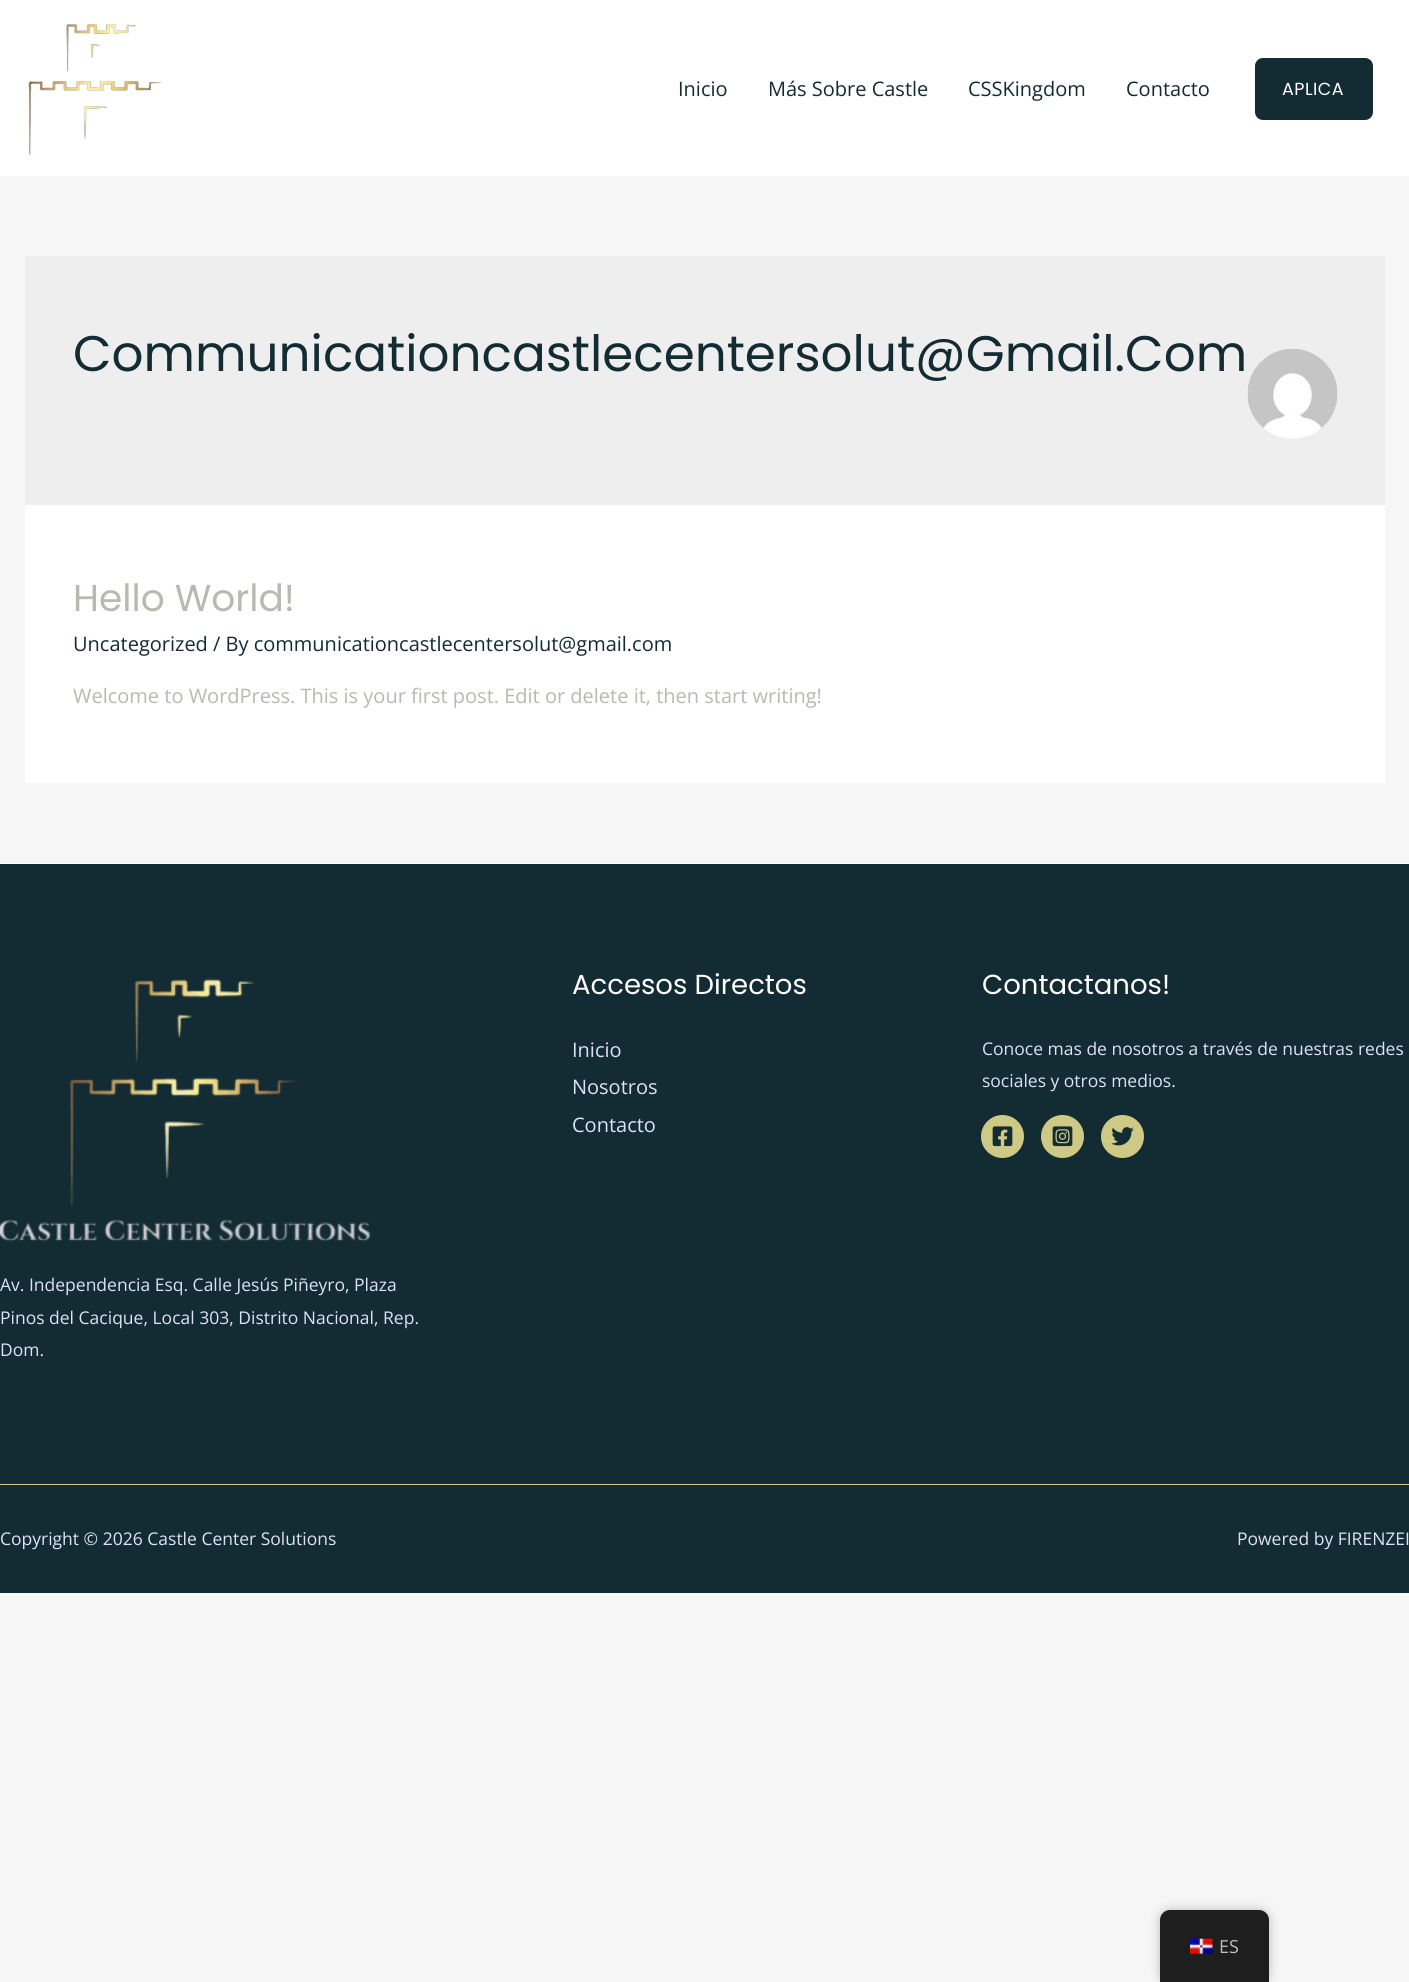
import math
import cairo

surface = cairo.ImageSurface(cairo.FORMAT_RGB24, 1409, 1982)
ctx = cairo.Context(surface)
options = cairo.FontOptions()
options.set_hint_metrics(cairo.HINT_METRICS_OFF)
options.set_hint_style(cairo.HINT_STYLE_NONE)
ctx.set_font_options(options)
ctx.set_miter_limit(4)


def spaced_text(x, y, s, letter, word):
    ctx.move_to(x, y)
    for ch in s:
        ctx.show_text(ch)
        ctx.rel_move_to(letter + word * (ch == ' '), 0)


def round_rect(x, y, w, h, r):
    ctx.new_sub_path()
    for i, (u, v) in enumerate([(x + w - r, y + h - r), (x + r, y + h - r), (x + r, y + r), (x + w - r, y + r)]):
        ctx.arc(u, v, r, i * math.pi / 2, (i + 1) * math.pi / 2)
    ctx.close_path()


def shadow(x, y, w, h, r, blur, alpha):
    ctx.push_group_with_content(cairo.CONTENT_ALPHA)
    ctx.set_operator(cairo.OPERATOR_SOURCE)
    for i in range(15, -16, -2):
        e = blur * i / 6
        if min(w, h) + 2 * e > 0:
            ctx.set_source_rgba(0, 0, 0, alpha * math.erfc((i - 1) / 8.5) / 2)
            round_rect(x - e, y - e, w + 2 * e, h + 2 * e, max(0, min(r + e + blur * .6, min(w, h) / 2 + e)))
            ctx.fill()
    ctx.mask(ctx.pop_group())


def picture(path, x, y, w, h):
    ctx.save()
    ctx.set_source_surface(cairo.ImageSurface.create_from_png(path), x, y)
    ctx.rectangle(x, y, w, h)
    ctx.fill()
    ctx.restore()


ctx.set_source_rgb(0.961, 0.961, 0.961)
ctx.paint()
ctx.set_source_rgb(1, 1, 1)
ctx.rectangle(0, 0, 1409, 176)
ctx.fill()
picture("img1.png", 28, 23, 133, 132)
ctx.select_font_face("Open Sans")
ctx.set_font_size(20)
ctx.set_source_rgb(0.078, 0.169, 0.2)
ctx.move_to(678, 96)
ctx.show_text("Inicio")
ctx.move_to(768, 96)
ctx.show_text("Más Sobre Castle")
ctx.move_to(968, 96)
ctx.show_text("CSSKingdom")
ctx.move_to(1126, 96)
ctx.show_text("Contacto")
round_rect(1255, 58, 118, 62, 8)
ctx.fill()
ctx.select_font_face("Poppins")
ctx.set_font_size(17.5)
ctx.set_source_rgb(1, 1, 1)
spaced_text(1282, 95, "APLICA", 0.5, 0)
ctx.set_source_rgb(0.933, 0.933, 0.933)
ctx.rectangle(25, 256, 1360, 249)
ctx.fill()
ctx.set_font_size(50)
ctx.set_source_rgb(0.078, 0.169, 0.2)
ctx.move_to(73, 371)
ctx.show_text("Communicationcastlecentersolut@Gmail.Com")
picture("img2.png", 1247, 349, 91, 90)
ctx.set_source_rgb(1, 1, 1)
ctx.rectangle(25, 505, 1360, 278)
ctx.fill()
ctx.set_font_size(37.5)
ctx.set_source_rgb(0.725, 0.725, 0.69)
ctx.move_to(73, 611)
ctx.show_text("Hello World!")
ctx.select_font_face("Open Sans")
ctx.set_font_size(20)
ctx.set_source_rgb(0.078, 0.169, 0.2)
ctx.move_to(73, 651)
ctx.show_text("Uncategorized / By communicationcastlecentersolut@gmail.com")
ctx.set_source_rgb(0.725, 0.725, 0.69)
ctx.move_to(73, 703)
ctx.show_text("Welcome to WordPress. This is your first post. Edit or delete it, then start writing!")
ctx.set_source_rgb(0.078, 0.169, 0.2)
ctx.rectangle(0, 864, 1409, 729)
ctx.fill()
ctx.set_source_rgb(1, 0.996, 0.996)
ctx.rectangle(0, 863, 1409, 1)
ctx.fill()
ctx.select_font_face("Poppins")
ctx.set_font_size(27.5)
ctx.set_source_rgb(1, 1, 1)
ctx.move_to(572, 994)
ctx.show_text("Accesos Directos")
ctx.select_font_face("Open Sans")
ctx.set_font_size(20)
ctx.set_source_rgb(0.871, 0.882, 0.973)
ctx.move_to(572, 1057)
ctx.show_text("Inicio")
ctx.move_to(572, 1094)
ctx.show_text("Nosotros")
ctx.move_to(572, 1132)
ctx.show_text("Contacto")
ctx.select_font_face("Poppins")
ctx.set_font_size(27.5)
ctx.set_source_rgb(1, 1, 1)
ctx.move_to(982, 994)
ctx.show_text("Contactanos!")
ctx.select_font_face("Open Sans")
ctx.set_font_size(17.5)
ctx.set_source_rgb(0.871, 0.882, 0.973)
ctx.move_to(982, 1055)
ctx.show_text("Conoce mas de nosotros a través de nuestras redes")
ctx.move_to(982, 1087)
ctx.show_text("sociales y otros medios.")
ctx.set_source_rgb(0.808, 0.788, 0.518)
ctx.new_path()
ctx.arc(1002.5, 1136.5, 21.5, 0, 2 * math.pi)
ctx.fill()
picture("img3.png", 992, 1126, 21, 21)
ctx.arc(1062.5, 1136.5, 21.5, 0, 2 * math.pi)
ctx.fill()
picture("img4.png", 1052, 1126, 21, 21)
ctx.arc(1122.5, 1136.5, 21.5, 0, 2 * math.pi)
ctx.fill()
picture("img5.png", 1111, 1127, 23, 19)
picture("img6.png", 0, 978, 371, 264)
ctx.set_source_rgb(0.871, 0.882, 0.973)
ctx.move_to(0, 1291)
ctx.show_text("Av. Independencia Esq. Calle Jesús Piñeyro, Plaza")
ctx.move_to(0, 1324)
ctx.show_text("Pinos del Cacique, Local 303, Distrito Nacional, Rep.")
ctx.move_to(0, 1356)
ctx.show_text("Dom.")
ctx.set_source_rgb(0.808, 0.788, 0.518)
ctx.rectangle(0, 1484, 1409, 1)
ctx.fill()
ctx.set_source_rgb(0.871, 0.882, 0.973)
ctx.move_to(0, 1545)
ctx.show_text("Copyright © 2026 Castle Center Solutions")
ctx.move_to(1237, 1545)
ctx.show_text("Powered by FIRENZEI")
ctx.set_source_rgb(0, 0, 0)
shadow(1160, 1910, 109, 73, 10, 5, 0.25)
ctx.set_source_rgb(0.118, 0.118, 0.118)
ctx.new_path()
ctx.move_to(1170, 1910)
ctx.line_to(1259, 1910)
ctx.curve_to(1264.5, 1910, 1269, 1914.5, 1269, 1920)
ctx.line_to(1269, 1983)
ctx.line_to(1160, 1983)
ctx.line_to(1160, 1920)
ctx.curve_to(1160, 1914.5, 1164.5, 1910, 1170, 1910)
ctx.close_path()
ctx.fill()
picture("img7.png", 1190, 1938, 23, 16)
ctx.set_font_size(18)
ctx.set_source_rgb(0.741, 0.741, 0.741)
ctx.move_to(1219, 1953)
ctx.show_text("ES")
surface.write_to_png("page.png")
